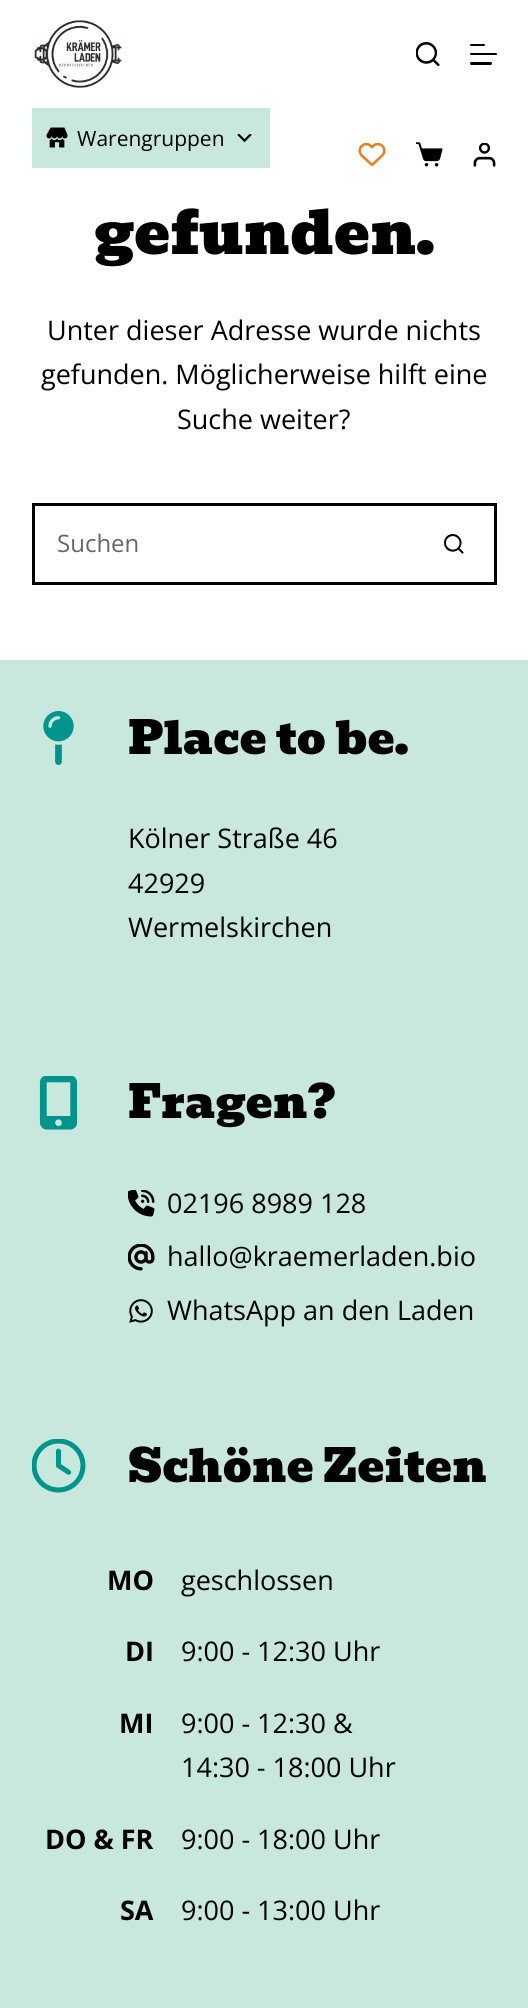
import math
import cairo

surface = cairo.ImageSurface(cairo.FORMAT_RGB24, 528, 2008)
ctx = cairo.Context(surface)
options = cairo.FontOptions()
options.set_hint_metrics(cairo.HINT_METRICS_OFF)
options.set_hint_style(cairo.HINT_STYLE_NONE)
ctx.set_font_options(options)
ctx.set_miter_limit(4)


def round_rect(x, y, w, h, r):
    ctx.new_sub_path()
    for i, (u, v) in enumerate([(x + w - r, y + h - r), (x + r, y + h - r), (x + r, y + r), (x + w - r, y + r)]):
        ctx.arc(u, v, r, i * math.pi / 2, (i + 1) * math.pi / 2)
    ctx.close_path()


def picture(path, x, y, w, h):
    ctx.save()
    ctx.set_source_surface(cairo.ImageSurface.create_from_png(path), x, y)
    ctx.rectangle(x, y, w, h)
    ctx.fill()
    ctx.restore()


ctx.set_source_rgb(1, 1, 1)
ctx.paint()
picture("img1.png", 34, 20, 88, 68)
picture("img2.png", 416, 42, 24, 24)
ctx.set_source_rgb(0, 0, 0)
round_rect(470, 44, 15, 2, 1)
ctx.fill()
round_rect(470, 53, 27, 2, 1)
ctx.fill()
round_rect(470, 62, 22, 3, 1.5)
ctx.fill()
ctx.set_source_rgb(0.784, 0.91, 0.871)
ctx.rectangle(32, 108, 238, 60)
ctx.fill()
picture("img3.png", 46, 127, 22, 21)
ctx.select_font_face("Open Sans")
ctx.set_font_size(21)
ctx.set_source_rgb(0, 0, 0)
ctx.move_to(77, 146)
ctx.show_text("Warengruppen")
picture("img4.png", 237, 133, 15, 10)
picture("img5.png", 358, 142, 28, 24)
picture("img6.png", 416, 142, 27, 25)
picture("img7.png", 473, 143, 23, 24)
ctx.select_font_face("Bevan")
ctx.set_font_size(60)
ctx.move_to(94, 254)
ctx.show_text("gefunden.")
ctx.select_font_face("Open Sans")
ctx.set_font_size(27)
ctx.move_to(47, 340)
ctx.show_text("Unter dieser Adresse wurde nichts")
ctx.move_to(41, 384)
ctx.show_text("gefunden. Möglicherweise hilft eine")
ctx.move_to(177, 429)
ctx.show_text("Suche weiter?")
ctx.rectangle(32, 503, 465, 3)
ctx.fill()
ctx.rectangle(32, 582, 382, 3)
ctx.fill()
ctx.rectangle(32, 503, 3, 82)
ctx.fill()
ctx.set_font_size(24)
ctx.set_source_rgb(0.4, 0.4, 0.4)
ctx.move_to(57, 552)
ctx.show_text("Suchen")
ctx.set_source_rgb(0, 0, 0)
ctx.rectangle(494, 503, 3, 82)
ctx.fill()
ctx.rectangle(414, 582, 83, 3)
ctx.fill()
picture("img8.png", 444, 534, 20, 20)
ctx.set_source_rgb(0.784, 0.91, 0.871)
ctx.rectangle(0, 660, 528, 1348)
ctx.fill()
picture("img9.png", 43, 711, 31, 54)
ctx.select_font_face("Bevan")
ctx.set_font_size(45)
ctx.set_source_rgb(0, 0, 0)
ctx.move_to(128, 754)
ctx.show_text("Place to be.")
ctx.select_font_face("Open Sans")
ctx.set_font_size(27)
ctx.move_to(128, 848)
ctx.show_text("Kölner Straße 46")
ctx.move_to(128, 893)
ctx.show_text("42929")
ctx.move_to(128, 937)
ctx.show_text("Wermelskirchen")
picture("img10.png", 39, 1076, 39, 54)
ctx.select_font_face("Bevan")
ctx.set_font_size(45)
ctx.move_to(128, 1118)
ctx.show_text("Fragen?")
picture("img11.png", 128, 1190, 27, 27)
ctx.select_font_face("Open Sans")
ctx.set_font_size(27)
ctx.move_to(167, 1213)
ctx.show_text("02196 8989 128")
picture("img12.png", 128, 1244, 27, 27)
ctx.move_to(167, 1266)
ctx.show_text("hallo@kraemerladen.bio")
picture("img13.png", 129, 1299, 24, 24)
ctx.move_to(167, 1320)
ctx.show_text("WhatsApp an den Laden")
picture("img14.png", 32, 1439, 54, 54)
ctx.select_font_face("Bevan")
ctx.set_font_size(45)
ctx.move_to(128, 1482)
ctx.show_text("Schöne Zeiten")
ctx.select_font_face("Open Sans", cairo.FONT_SLANT_NORMAL, cairo.FONT_WEIGHT_BOLD)
ctx.set_font_size(27)
ctx.move_to(107, 1590)
ctx.show_text("MO")
ctx.select_font_face("Open Sans")
ctx.move_to(181, 1590)
ctx.show_text("geschlossen")
ctx.select_font_face("Open Sans", cairo.FONT_SLANT_NORMAL, cairo.FONT_WEIGHT_BOLD)
ctx.move_to(125, 1661)
ctx.show_text("DI")
ctx.select_font_face("Open Sans")
ctx.move_to(181, 1661)
ctx.show_text("9:00 - 12:30 Uhr")
ctx.select_font_face("Open Sans", cairo.FONT_SLANT_NORMAL, cairo.FONT_WEIGHT_BOLD)
ctx.move_to(119, 1733)
ctx.show_text("MI")
ctx.select_font_face("Open Sans")
ctx.move_to(181, 1733)
ctx.show_text("9:00 - 12:30 &")
ctx.move_to(181, 1777)
ctx.show_text("14:30 - 18:00 Uhr")
ctx.select_font_face("Open Sans", cairo.FONT_SLANT_NORMAL, cairo.FONT_WEIGHT_BOLD)
ctx.move_to(45, 1849)
ctx.show_text("DO & FR")
ctx.select_font_face("Open Sans")
ctx.move_to(181, 1849)
ctx.show_text("9:00 - 18:00 Uhr")
ctx.select_font_face("Open Sans", cairo.FONT_SLANT_NORMAL, cairo.FONT_WEIGHT_BOLD)
ctx.move_to(120, 1920)
ctx.show_text("SA")
ctx.select_font_face("Open Sans")
ctx.move_to(181, 1920)
ctx.show_text("9:00 - 13:00 Uhr")
surface.write_to_png("page.png")
